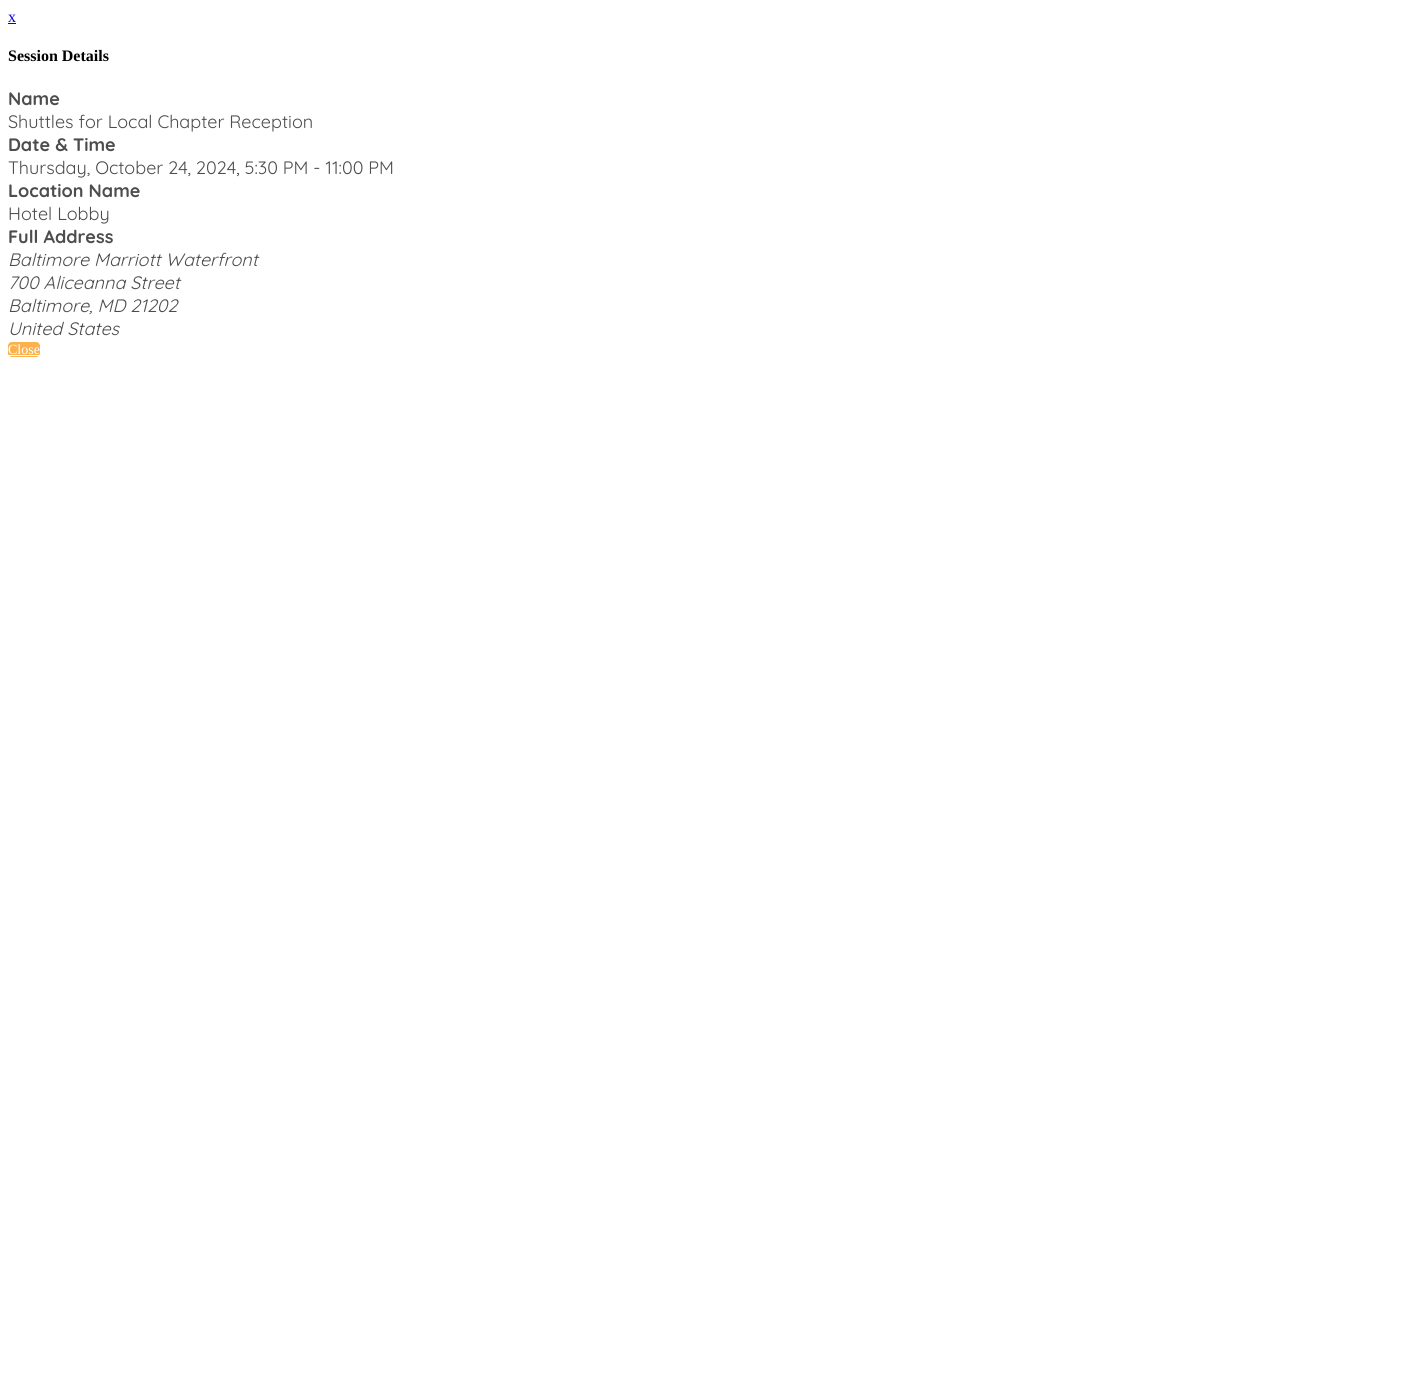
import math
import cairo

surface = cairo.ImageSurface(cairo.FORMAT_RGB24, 1402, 1396)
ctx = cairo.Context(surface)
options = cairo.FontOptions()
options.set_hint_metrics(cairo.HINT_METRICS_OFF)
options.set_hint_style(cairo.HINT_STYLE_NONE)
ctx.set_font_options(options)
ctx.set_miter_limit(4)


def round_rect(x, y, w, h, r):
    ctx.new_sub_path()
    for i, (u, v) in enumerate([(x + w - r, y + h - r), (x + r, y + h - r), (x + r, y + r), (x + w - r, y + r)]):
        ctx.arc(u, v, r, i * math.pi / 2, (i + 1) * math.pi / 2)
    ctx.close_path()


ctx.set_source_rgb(1, 1, 1)
ctx.paint()
ctx.select_font_face("Liberation Serif")
ctx.set_font_size(16)
ctx.set_source_rgb(0, 0, 0.933)
ctx.move_to(8, 22)
ctx.show_text("x")
ctx.rectangle(8, 23, 8, 1)
ctx.fill()
ctx.select_font_face("Liberation Serif", cairo.FONT_SLANT_NORMAL, cairo.FONT_WEIGHT_BOLD)
ctx.set_source_rgb(0, 0, 0)
ctx.move_to(8, 61)
ctx.show_text("Session Details")
ctx.select_font_face("Quicksand", cairo.FONT_SLANT_NORMAL, cairo.FONT_WEIGHT_BOLD)
ctx.set_font_size(18)
ctx.set_source_rgb(0.302, 0.302, 0.302)
ctx.move_to(8, 105)
ctx.show_text("Name")
ctx.select_font_face("Quicksand")
ctx.move_to(8, 128)
ctx.show_text("Shuttles for Local Chapter Reception")
ctx.select_font_face("Quicksand", cairo.FONT_SLANT_NORMAL, cairo.FONT_WEIGHT_BOLD)
ctx.move_to(8, 151)
ctx.show_text("Date & Time")
ctx.select_font_face("Quicksand")
ctx.move_to(8, 174)
ctx.show_text("Thursday, October 24, 2024, 5:30 PM - 11:00 PM")
ctx.select_font_face("Quicksand", cairo.FONT_SLANT_NORMAL, cairo.FONT_WEIGHT_BOLD)
ctx.move_to(8, 197)
ctx.show_text("Location Name")
ctx.select_font_face("Quicksand")
ctx.move_to(8, 220)
ctx.show_text("Hotel Lobby")
ctx.select_font_face("Quicksand", cairo.FONT_SLANT_NORMAL, cairo.FONT_WEIGHT_BOLD)
ctx.move_to(8, 243)
ctx.show_text("Full Address")
ctx.select_font_face("Quicksand", cairo.FONT_SLANT_ITALIC)
ctx.move_to(8, 266)
ctx.show_text("Baltimore Marriott Waterfront")
ctx.move_to(8, 289)
ctx.show_text("700 Aliceanna Street")
ctx.move_to(8, 312)
ctx.show_text("Baltimore, MD 21202")
ctx.move_to(8, 335)
ctx.show_text("United States")
ctx.set_source_rgb(0.984, 0.698, 0.302)
round_rect(8, 342, 32, 15, 4)
ctx.fill()
ctx.select_font_face("Liberation Serif")
ctx.set_font_size(14)
ctx.set_source_rgb(1, 1, 1)
ctx.move_to(8, 354)
ctx.show_text("Close")
ctx.rectangle(8, 355, 32, 1)
ctx.fill()
surface.write_to_png("page.png")
